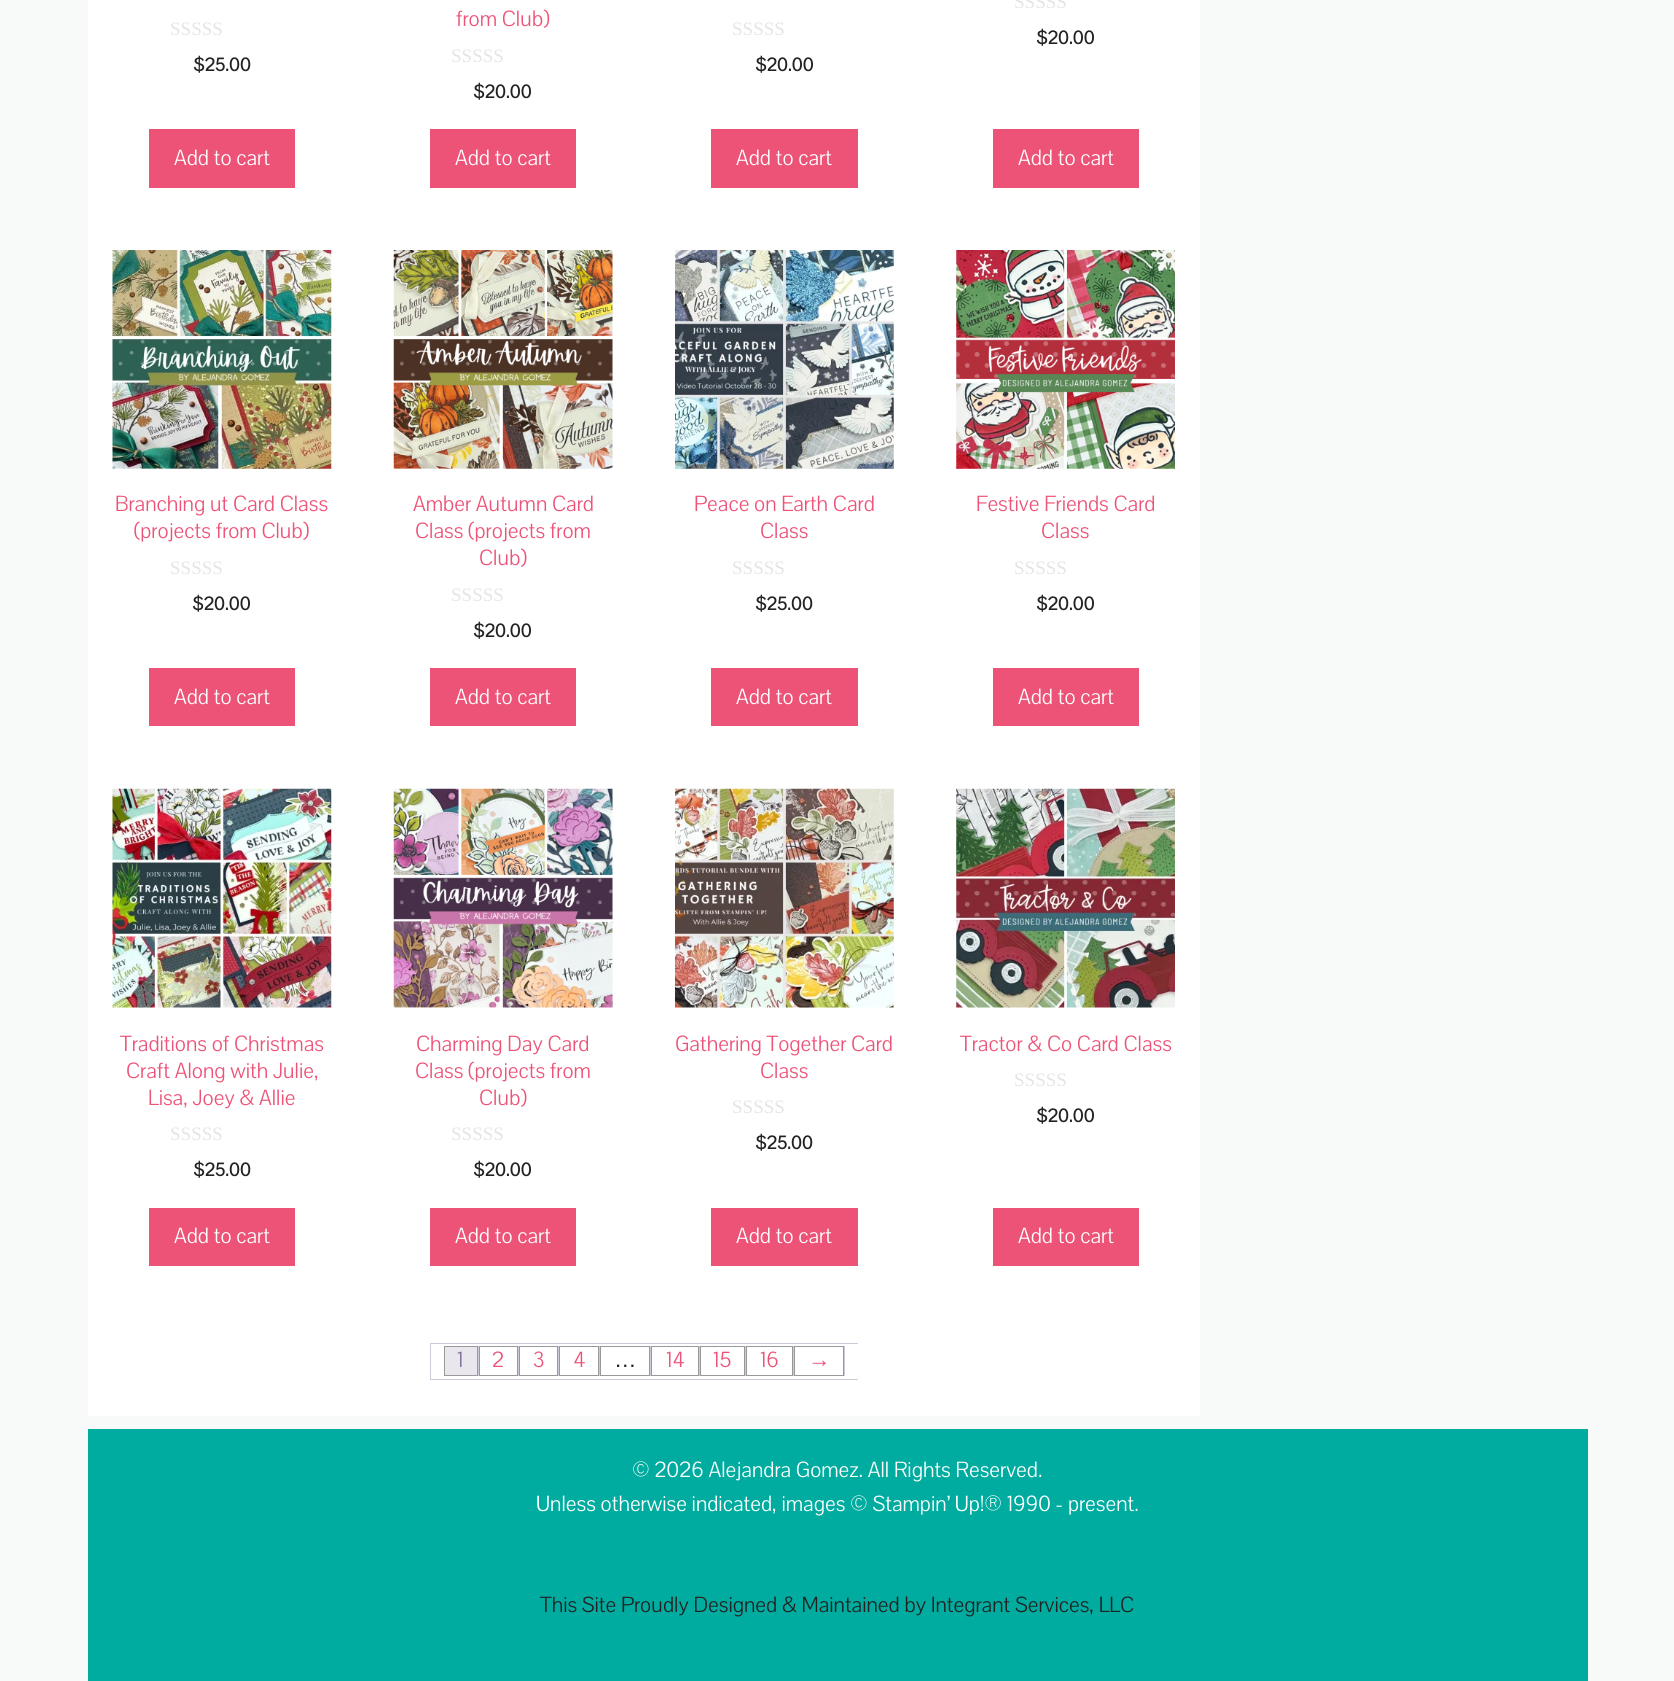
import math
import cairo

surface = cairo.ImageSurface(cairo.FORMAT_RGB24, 1674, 1681)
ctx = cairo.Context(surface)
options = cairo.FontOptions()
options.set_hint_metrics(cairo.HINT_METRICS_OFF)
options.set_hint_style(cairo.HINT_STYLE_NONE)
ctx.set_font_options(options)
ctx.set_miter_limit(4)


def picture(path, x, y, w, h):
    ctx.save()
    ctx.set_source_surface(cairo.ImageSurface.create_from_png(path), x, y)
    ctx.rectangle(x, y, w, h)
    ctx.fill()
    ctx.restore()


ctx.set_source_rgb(0.969, 0.973, 0.976)
ctx.paint()
ctx.set_source_rgb(1, 1, 1)
ctx.rectangle(88, 0, 1112, 1416)
ctx.fill()
ctx.select_font_face("Liberation Serif")
ctx.set_font_size(19)
ctx.set_source_rgb(0.898, 0.898, 0.898)
ctx.move_to(170, 35)
ctx.show_text("SSSSS")
ctx.select_font_face("Pavanam", cairo.FONT_SLANT_NORMAL, cairo.FONT_WEIGHT_BOLD)
ctx.set_source_rgb(0.133, 0.133, 0.133)
ctx.move_to(193, 71)
ctx.show_text("$25.00")
ctx.set_source_rgb(0.929, 0.322, 0.467)
ctx.rectangle(149, 129, 146, 59)
ctx.fill()
ctx.select_font_face("Pavanam")
ctx.set_font_size(22.5)
ctx.set_source_rgb(1, 1, 1)
ctx.move_to(174, 165)
ctx.show_text("Add to cart")
ctx.set_source_rgb(0.929, 0.322, 0.467)
ctx.move_to(456, 26)
ctx.show_text("from Club)")
ctx.select_font_face("Liberation Serif")
ctx.set_font_size(19)
ctx.set_source_rgb(0.898, 0.898, 0.898)
ctx.move_to(451, 62)
ctx.show_text("SSSSS")
ctx.select_font_face("Pavanam", cairo.FONT_SLANT_NORMAL, cairo.FONT_WEIGHT_BOLD)
ctx.set_source_rgb(0.133, 0.133, 0.133)
ctx.move_to(473, 98)
ctx.show_text("$20.00")
ctx.set_source_rgb(0.929, 0.322, 0.467)
ctx.rectangle(430, 129, 146, 59)
ctx.fill()
ctx.select_font_face("Pavanam")
ctx.set_font_size(22.5)
ctx.set_source_rgb(1, 1, 1)
ctx.move_to(455, 165)
ctx.show_text("Add to cart")
ctx.select_font_face("Liberation Serif")
ctx.set_font_size(19)
ctx.set_source_rgb(0.898, 0.898, 0.898)
ctx.move_to(732, 35)
ctx.show_text("SSSSS")
ctx.select_font_face("Pavanam", cairo.FONT_SLANT_NORMAL, cairo.FONT_WEIGHT_BOLD)
ctx.set_source_rgb(0.133, 0.133, 0.133)
ctx.move_to(755, 71)
ctx.show_text("$20.00")
ctx.set_source_rgb(0.929, 0.322, 0.467)
ctx.rectangle(711, 129, 147, 59)
ctx.fill()
ctx.select_font_face("Pavanam")
ctx.set_font_size(22.5)
ctx.set_source_rgb(1, 1, 1)
ctx.move_to(736, 165)
ctx.show_text("Add to cart")
ctx.select_font_face("Liberation Serif")
ctx.set_font_size(19)
ctx.set_source_rgb(0.898, 0.898, 0.898)
ctx.move_to(1014, 8)
ctx.show_text("SSSSS")
ctx.select_font_face("Pavanam", cairo.FONT_SLANT_NORMAL, cairo.FONT_WEIGHT_BOLD)
ctx.set_source_rgb(0.133, 0.133, 0.133)
ctx.move_to(1036, 44)
ctx.show_text("$20.00")
ctx.set_source_rgb(0.929, 0.322, 0.467)
ctx.rectangle(993, 129, 146, 59)
ctx.fill()
ctx.select_font_face("Pavanam")
ctx.set_font_size(22.5)
ctx.set_source_rgb(1, 1, 1)
ctx.move_to(1018, 165)
ctx.show_text("Add to cart")
picture("img1.png", 112, 250, 220, 219)
ctx.set_source_rgb(0.929, 0.322, 0.467)
ctx.move_to(115, 511)
ctx.show_text("Branching ut Card Class")
ctx.move_to(134, 538)
ctx.show_text("(projects from Club)")
ctx.select_font_face("Liberation Serif")
ctx.set_font_size(19)
ctx.set_source_rgb(0.898, 0.898, 0.898)
ctx.move_to(170, 574)
ctx.show_text("SSSSS")
ctx.select_font_face("Pavanam", cairo.FONT_SLANT_NORMAL, cairo.FONT_WEIGHT_BOLD)
ctx.set_source_rgb(0.133, 0.133, 0.133)
ctx.move_to(192, 610)
ctx.show_text("$20.00")
ctx.set_source_rgb(0.929, 0.322, 0.467)
ctx.rectangle(149, 668, 146, 58)
ctx.fill()
ctx.select_font_face("Pavanam")
ctx.set_font_size(22.5)
ctx.set_source_rgb(1, 1, 1)
ctx.move_to(174, 704)
ctx.show_text("Add to cart")
picture("img2.png", 393, 250, 220, 219)
ctx.set_source_rgb(0.929, 0.322, 0.467)
ctx.move_to(413, 511)
ctx.show_text("Amber Autumn Card")
ctx.move_to(415, 538)
ctx.show_text("Class (projects from")
ctx.move_to(479, 565)
ctx.show_text("Club)")
ctx.select_font_face("Liberation Serif")
ctx.set_font_size(19)
ctx.set_source_rgb(0.898, 0.898, 0.898)
ctx.move_to(451, 601)
ctx.show_text("SSSSS")
ctx.select_font_face("Pavanam", cairo.FONT_SLANT_NORMAL, cairo.FONT_WEIGHT_BOLD)
ctx.set_source_rgb(0.133, 0.133, 0.133)
ctx.move_to(473, 637)
ctx.show_text("$20.00")
ctx.set_source_rgb(0.929, 0.322, 0.467)
ctx.rectangle(430, 668, 146, 58)
ctx.fill()
ctx.select_font_face("Pavanam")
ctx.set_font_size(22.5)
ctx.set_source_rgb(1, 1, 1)
ctx.move_to(455, 704)
ctx.show_text("Add to cart")
picture("img3.png", 675, 250, 219, 219)
ctx.set_source_rgb(0.929, 0.322, 0.467)
ctx.move_to(694, 511)
ctx.show_text("Peace on Earth Card")
ctx.move_to(760, 538)
ctx.show_text("Class")
ctx.select_font_face("Liberation Serif")
ctx.set_font_size(19)
ctx.set_source_rgb(0.898, 0.898, 0.898)
ctx.move_to(732, 574)
ctx.show_text("SSSSS")
ctx.select_font_face("Pavanam", cairo.FONT_SLANT_NORMAL, cairo.FONT_WEIGHT_BOLD)
ctx.set_source_rgb(0.133, 0.133, 0.133)
ctx.move_to(755, 610)
ctx.show_text("$25.00")
ctx.set_source_rgb(0.929, 0.322, 0.467)
ctx.rectangle(711, 668, 147, 58)
ctx.fill()
ctx.select_font_face("Pavanam")
ctx.set_font_size(22.5)
ctx.set_source_rgb(1, 1, 1)
ctx.move_to(736, 704)
ctx.show_text("Add to cart")
picture("img4.png", 956, 250, 219, 219)
ctx.set_source_rgb(0.929, 0.322, 0.467)
ctx.move_to(976, 511)
ctx.show_text("Festive Friends Card")
ctx.move_to(1041, 538)
ctx.show_text("Class")
ctx.select_font_face("Liberation Serif")
ctx.set_font_size(19)
ctx.set_source_rgb(0.898, 0.898, 0.898)
ctx.move_to(1014, 574)
ctx.show_text("SSSSS")
ctx.select_font_face("Pavanam", cairo.FONT_SLANT_NORMAL, cairo.FONT_WEIGHT_BOLD)
ctx.set_source_rgb(0.133, 0.133, 0.133)
ctx.move_to(1036, 610)
ctx.show_text("$20.00")
ctx.set_source_rgb(0.929, 0.322, 0.467)
ctx.rectangle(993, 668, 146, 58)
ctx.fill()
ctx.select_font_face("Pavanam")
ctx.set_font_size(22.5)
ctx.set_source_rgb(1, 1, 1)
ctx.move_to(1018, 704)
ctx.show_text("Add to cart")
picture("img5.png", 112, 788, 220, 220)
ctx.set_source_rgb(0.929, 0.322, 0.467)
ctx.move_to(120, 1051)
ctx.show_text("Traditions of Christmas")
ctx.move_to(126, 1078)
ctx.show_text("Craft Along with Julie,")
ctx.move_to(148, 1105)
ctx.show_text("Lisa, Joey & Allie")
ctx.select_font_face("Liberation Serif")
ctx.set_font_size(19)
ctx.set_source_rgb(0.898, 0.898, 0.898)
ctx.move_to(170, 1140)
ctx.show_text("SSSSS")
ctx.select_font_face("Pavanam", cairo.FONT_SLANT_NORMAL, cairo.FONT_WEIGHT_BOLD)
ctx.set_source_rgb(0.133, 0.133, 0.133)
ctx.move_to(193, 1176)
ctx.show_text("$25.00")
ctx.set_source_rgb(0.929, 0.322, 0.467)
ctx.rectangle(149, 1208, 146, 58)
ctx.fill()
ctx.select_font_face("Pavanam")
ctx.set_font_size(22.5)
ctx.set_source_rgb(1, 1, 1)
ctx.move_to(174, 1243)
ctx.show_text("Add to cart")
picture("img6.png", 393, 788, 220, 220)
ctx.set_source_rgb(0.929, 0.322, 0.467)
ctx.move_to(416, 1051)
ctx.show_text("Charming Day Card")
ctx.move_to(415, 1078)
ctx.show_text("Class (projects from")
ctx.move_to(479, 1105)
ctx.show_text("Club)")
ctx.select_font_face("Liberation Serif")
ctx.set_font_size(19)
ctx.set_source_rgb(0.898, 0.898, 0.898)
ctx.move_to(451, 1140)
ctx.show_text("SSSSS")
ctx.select_font_face("Pavanam", cairo.FONT_SLANT_NORMAL, cairo.FONT_WEIGHT_BOLD)
ctx.set_source_rgb(0.133, 0.133, 0.133)
ctx.move_to(473, 1176)
ctx.show_text("$20.00")
ctx.set_source_rgb(0.929, 0.322, 0.467)
ctx.rectangle(430, 1208, 146, 58)
ctx.fill()
ctx.select_font_face("Pavanam")
ctx.set_font_size(22.5)
ctx.set_source_rgb(1, 1, 1)
ctx.move_to(455, 1243)
ctx.show_text("Add to cart")
picture("img7.png", 675, 788, 219, 220)
ctx.set_source_rgb(0.929, 0.322, 0.467)
ctx.move_to(675, 1051)
ctx.show_text("Gathering Together Card")
ctx.move_to(760, 1078)
ctx.show_text("Class")
ctx.select_font_face("Liberation Serif")
ctx.set_font_size(19)
ctx.set_source_rgb(0.898, 0.898, 0.898)
ctx.move_to(732, 1113)
ctx.show_text("SSSSS")
ctx.select_font_face("Pavanam", cairo.FONT_SLANT_NORMAL, cairo.FONT_WEIGHT_BOLD)
ctx.set_source_rgb(0.133, 0.133, 0.133)
ctx.move_to(755, 1149)
ctx.show_text("$25.00")
ctx.set_source_rgb(0.929, 0.322, 0.467)
ctx.rectangle(711, 1208, 147, 58)
ctx.fill()
ctx.select_font_face("Pavanam")
ctx.set_font_size(22.5)
ctx.set_source_rgb(1, 1, 1)
ctx.move_to(736, 1243)
ctx.show_text("Add to cart")
picture("img8.png", 956, 788, 219, 220)
ctx.set_source_rgb(0.929, 0.322, 0.467)
ctx.move_to(960, 1051)
ctx.show_text("Tractor & Co Card Class")
ctx.select_font_face("Liberation Serif")
ctx.set_font_size(19)
ctx.set_source_rgb(0.898, 0.898, 0.898)
ctx.move_to(1014, 1086)
ctx.show_text("SSSSS")
ctx.select_font_face("Pavanam", cairo.FONT_SLANT_NORMAL, cairo.FONT_WEIGHT_BOLD)
ctx.set_source_rgb(0.133, 0.133, 0.133)
ctx.move_to(1036, 1122)
ctx.show_text("$20.00")
ctx.set_source_rgb(0.929, 0.322, 0.467)
ctx.rectangle(993, 1208, 146, 58)
ctx.fill()
ctx.select_font_face("Pavanam")
ctx.set_font_size(22.5)
ctx.set_source_rgb(1, 1, 1)
ctx.move_to(1018, 1243)
ctx.show_text("Add to cart")
ctx.set_source_rgb(0.812, 0.784, 0.847)
ctx.rectangle(430, 1343, 428, 1)
ctx.fill()
ctx.rectangle(430, 1379, 428, 1)
ctx.fill()
ctx.rectangle(430, 1343, 1, 37)
ctx.fill()
ctx.rectangle(478, 1346, 1, 30)
ctx.fill()
ctx.set_source_rgb(0.914, 0.902, 0.929)
ctx.rectangle(444.5, 1346.5, 33, 29)
ctx.fill_preserve()
ctx.set_source_rgb(0.6, 0.6, 0.6)
ctx.set_line_width(1)
ctx.stroke()
ctx.set_source_rgb(0.506, 0.435, 0.596)
ctx.move_to(457, 1367)
ctx.show_text("1")
ctx.set_source_rgb(0.812, 0.784, 0.847)
ctx.rectangle(518, 1346, 1, 30)
ctx.fill()
ctx.rectangle(479.5, 1346.5, 38, 29)
ctx.set_source_rgb(0.6, 0.6, 0.6)
ctx.stroke()
ctx.set_source_rgb(0.929, 0.322, 0.467)
ctx.move_to(492, 1367)
ctx.show_text("2")
ctx.set_source_rgb(0.812, 0.784, 0.847)
ctx.rectangle(558, 1346, 1, 30)
ctx.fill()
ctx.rectangle(519.5, 1346.5, 38, 29)
ctx.set_source_rgb(0.6, 0.6, 0.6)
ctx.stroke()
ctx.set_source_rgb(0.929, 0.322, 0.467)
ctx.move_to(533, 1367)
ctx.show_text("3")
ctx.set_source_rgb(0.812, 0.784, 0.847)
ctx.rectangle(599, 1346, 1, 30)
ctx.fill()
ctx.rectangle(559.5, 1346.5, 39, 29)
ctx.set_source_rgb(0.6, 0.6, 0.6)
ctx.stroke()
ctx.set_source_rgb(0.929, 0.322, 0.467)
ctx.move_to(573, 1367)
ctx.show_text("4")
ctx.set_source_rgb(0.812, 0.784, 0.847)
ctx.rectangle(650, 1346, 1, 30)
ctx.fill()
ctx.rectangle(600.5, 1346.5, 49, 29)
ctx.set_source_rgb(0.6, 0.6, 0.6)
ctx.stroke()
ctx.select_font_face("Liberation Sans")
ctx.set_source_rgb(0.133, 0.133, 0.133)
ctx.move_to(614, 1367)
ctx.show_text("…")
ctx.set_source_rgb(0.812, 0.784, 0.847)
ctx.rectangle(699, 1346, 1, 30)
ctx.fill()
ctx.rectangle(651.5, 1346.5, 47, 29)
ctx.set_source_rgb(0.6, 0.6, 0.6)
ctx.stroke()
ctx.select_font_face("Pavanam")
ctx.set_source_rgb(0.929, 0.322, 0.467)
ctx.move_to(666, 1367)
ctx.show_text("14")
ctx.set_source_rgb(0.812, 0.784, 0.847)
ctx.rectangle(745, 1346, 1, 30)
ctx.fill()
ctx.rectangle(700.5, 1346.5, 44, 29)
ctx.set_source_rgb(0.6, 0.6, 0.6)
ctx.stroke()
ctx.set_source_rgb(0.929, 0.322, 0.467)
ctx.move_to(713, 1367)
ctx.show_text("15")
ctx.set_source_rgb(0.812, 0.784, 0.847)
ctx.rectangle(793, 1346, 1, 30)
ctx.fill()
ctx.rectangle(746.5, 1346.5, 46, 29)
ctx.set_source_rgb(0.6, 0.6, 0.6)
ctx.stroke()
ctx.set_source_rgb(0.929, 0.322, 0.467)
ctx.move_to(760, 1367)
ctx.show_text("16")
ctx.set_source_rgb(0.812, 0.784, 0.847)
ctx.rectangle(844, 1346, 1, 30)
ctx.fill()
ctx.rectangle(794.5, 1346.5, 49, 29)
ctx.set_source_rgb(0.6, 0.6, 0.6)
ctx.stroke()
ctx.select_font_face("Liberation Sans")
ctx.set_source_rgb(0.929, 0.322, 0.467)
ctx.move_to(808, 1367)
ctx.show_text("→")
ctx.set_source_rgb(0, 0.675, 0.624)
ctx.rectangle(88, 1429, 1500, 252)
ctx.fill()
ctx.select_font_face("Pavanam")
ctx.set_source_rgb(1, 1, 1)
ctx.move_to(632, 1477)
ctx.show_text("© 2026 Alejandra Gomez. All Rights Reserved.")
ctx.move_to(536, 1511)
ctx.show_text("Unless otherwise indicated, images © Stampin’ Up!® 1990 - present.")
ctx.set_source_rgb(0.133, 0.133, 0.133)
ctx.move_to(540, 1612)
ctx.show_text("This Site Proudly Designed & Maintained by Integrant Services, LLC")
surface.write_to_png("page.png")
